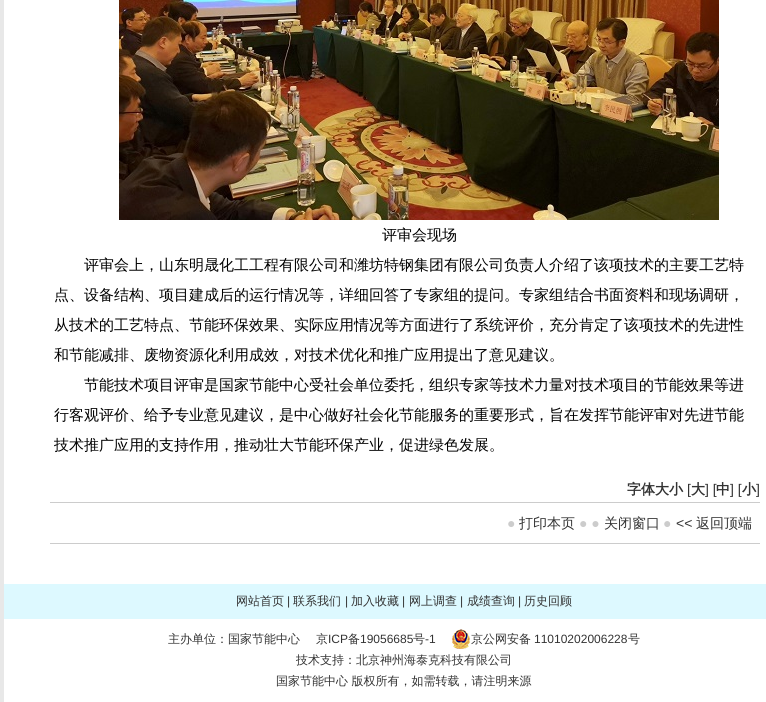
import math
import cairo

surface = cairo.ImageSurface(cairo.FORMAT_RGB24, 766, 702)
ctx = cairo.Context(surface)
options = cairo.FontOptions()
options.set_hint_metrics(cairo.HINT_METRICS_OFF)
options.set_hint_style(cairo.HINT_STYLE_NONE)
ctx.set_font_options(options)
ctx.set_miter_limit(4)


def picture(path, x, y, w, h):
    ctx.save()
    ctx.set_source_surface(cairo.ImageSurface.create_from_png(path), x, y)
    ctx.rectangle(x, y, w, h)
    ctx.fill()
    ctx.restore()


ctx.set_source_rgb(1, 1, 1)
ctx.paint()
ctx.set_source_rgb(0.91, 0.91, 0.91)
ctx.rectangle(0, 0, 4, 702)
ctx.fill()
picture("img1.png", 119, 0, 600, 220)
ctx.select_font_face("WenQuanYi Zen Hei Medium")
ctx.set_font_size(15)
ctx.set_source_rgb(0, 0, 0)
ctx.move_to(382, 240)
ctx.show_text("评审会现场")
ctx.move_to(84, 270)
ctx.show_text("评审会上，山东明晟化工工程有限公司和潍坊特钢集团有限公司负责人介绍了该项技术的主要工艺特")
ctx.move_to(54, 300)
ctx.show_text("点、设备结构、项目建成后的运行情况等，详细回答了专家组的提问。专家组结合书面资料和现场调研，")
ctx.move_to(54, 330)
ctx.show_text("从技术的工艺特点、节能环保效果、实际应用情况等方面进行了系统评价，充分肯定了该项技术的先进性")
ctx.move_to(54, 360)
ctx.show_text("和节能减排、废物资源化利用成效，对技术优化和推广应用提出了意见建议。")
ctx.move_to(84, 390)
ctx.show_text("节能技术项目评审是国家节能中心受社会单位委托，组织专家等技术力量对技术项目的节能效果等进")
ctx.move_to(54, 420)
ctx.show_text("行客观评价、给予专业意见建议，是中心做好社会化节能服务的重要形式，旨在发挥节能评审对先进节能")
ctx.move_to(54, 450)
ctx.show_text("技术推广应用的支持作用，推动壮大节能环保产业，促进绿色发展。")
ctx.select_font_face("WenQuanYi Zen Hei", cairo.FONT_SLANT_NORMAL, cairo.FONT_WEIGHT_BOLD)
ctx.set_font_size(14)
ctx.set_source_rgb(0.2, 0.2, 0.2)
ctx.move_to(627, 494)
ctx.show_text("字体大小")
ctx.select_font_face("Liberation Sans")
ctx.move_to(687, 494)
ctx.show_text("[")
ctx.select_font_face("WenQuanYi Zen Hei", cairo.FONT_SLANT_NORMAL, cairo.FONT_WEIGHT_BOLD)
ctx.move_to(691, 494)
ctx.show_text("大")
ctx.select_font_face("Liberation Sans")
ctx.move_to(705, 494)
ctx.show_text("] [")
ctx.select_font_face("WenQuanYi Zen Hei", cairo.FONT_SLANT_NORMAL, cairo.FONT_WEIGHT_BOLD)
ctx.move_to(716, 494)
ctx.show_text("中")
ctx.select_font_face("Liberation Sans")
ctx.move_to(730, 494)
ctx.show_text("] [")
ctx.select_font_face("WenQuanYi Zen Hei", cairo.FONT_SLANT_NORMAL, cairo.FONT_WEIGHT_BOLD)
ctx.move_to(742, 494)
ctx.show_text("小")
ctx.select_font_face("Liberation Sans")
ctx.move_to(756, 494)
ctx.show_text("]")
ctx.set_source_rgb(0.8, 0.8, 0.8)
ctx.rectangle(50, 502, 710, 1)
ctx.fill()
ctx.rectangle(50, 543, 710, 1)
ctx.fill()
ctx.move_to(507, 528)
ctx.show_text("●")
ctx.select_font_face("WenQuanYi Zen Hei Medium")
ctx.set_source_rgb(0.2, 0.2, 0.2)
ctx.move_to(519, 528)
ctx.show_text("打印本页")
ctx.select_font_face("Liberation Sans")
ctx.set_source_rgb(0.8, 0.8, 0.8)
ctx.move_to(579, 528)
ctx.show_text("● ●")
ctx.select_font_face("WenQuanYi Zen Hei Medium")
ctx.set_source_rgb(0.2, 0.2, 0.2)
ctx.move_to(604, 528)
ctx.show_text("关闭窗口")
ctx.select_font_face("Liberation Sans")
ctx.set_source_rgb(0.8, 0.8, 0.8)
ctx.move_to(663, 528)
ctx.show_text("●")
ctx.set_source_rgb(0.2, 0.2, 0.2)
ctx.move_to(676, 528)
ctx.show_text("<<")
ctx.select_font_face("WenQuanYi Zen Hei Medium")
ctx.move_to(696, 528)
ctx.show_text("返回顶端")
ctx.set_source_rgb(0.867, 0.976, 1)
ctx.rectangle(4, 584, 762, 35)
ctx.fill()
ctx.set_font_size(12)
ctx.set_source_rgb(0.2, 0.2, 0.2)
ctx.move_to(236, 605)
ctx.show_text("网站首页")
ctx.select_font_face("Liberation Sans")
ctx.move_to(287, 605)
ctx.show_text("|")
ctx.select_font_face("WenQuanYi Zen Hei Medium")
ctx.move_to(293, 605)
ctx.show_text("联系我们")
ctx.select_font_face("Liberation Sans")
ctx.move_to(345, 605)
ctx.show_text("|")
ctx.select_font_face("WenQuanYi Zen Hei Medium")
ctx.move_to(351, 605)
ctx.show_text("加入收藏")
ctx.select_font_face("Liberation Sans")
ctx.move_to(402, 605)
ctx.show_text("|")
ctx.select_font_face("WenQuanYi Zen Hei Medium")
ctx.move_to(409, 605)
ctx.show_text("网上调查")
ctx.select_font_face("Liberation Sans")
ctx.move_to(460, 605)
ctx.show_text("|")
ctx.select_font_face("WenQuanYi Zen Hei Medium")
ctx.move_to(467, 605)
ctx.show_text("成绩查询")
ctx.select_font_face("Liberation Sans")
ctx.move_to(518, 605)
ctx.show_text("|")
ctx.select_font_face("WenQuanYi Zen Hei Medium")
ctx.move_to(524, 605)
ctx.show_text("历史回顾")
ctx.move_to(168, 643)
ctx.show_text("主办单位：国家节能中心")
ctx.move_to(316, 643)
ctx.show_text("京")
ctx.select_font_face("Liberation Sans")
ctx.move_to(328, 643)
ctx.show_text("ICP")
ctx.select_font_face("WenQuanYi Zen Hei Medium")
ctx.move_to(348, 643)
ctx.show_text("备")
ctx.select_font_face("Liberation Sans")
ctx.move_to(360, 643)
ctx.show_text("19056685")
ctx.select_font_face("WenQuanYi Zen Hei Medium")
ctx.move_to(413, 643)
ctx.show_text("号")
ctx.select_font_face("Liberation Sans")
ctx.move_to(425, 643)
ctx.show_text("-1")
picture("img2.png", 452, 629, 18, 20)
ctx.select_font_face("WenQuanYi Zen Hei Medium")
ctx.move_to(471, 643)
ctx.show_text("京公网安备")
ctx.select_font_face("Liberation Sans")
ctx.move_to(534, 643)
ctx.show_text("11010202006228")
ctx.select_font_face("WenQuanYi Zen Hei Medium")
ctx.move_to(628, 643)
ctx.show_text("号")
ctx.move_to(296, 664)
ctx.show_text("技术支持：北京神州海泰克科技有限公司")
ctx.move_to(276, 685)
ctx.show_text("国家节能中心 版权所有，如需转载，请注明来源")
surface.write_to_png("page.png")
